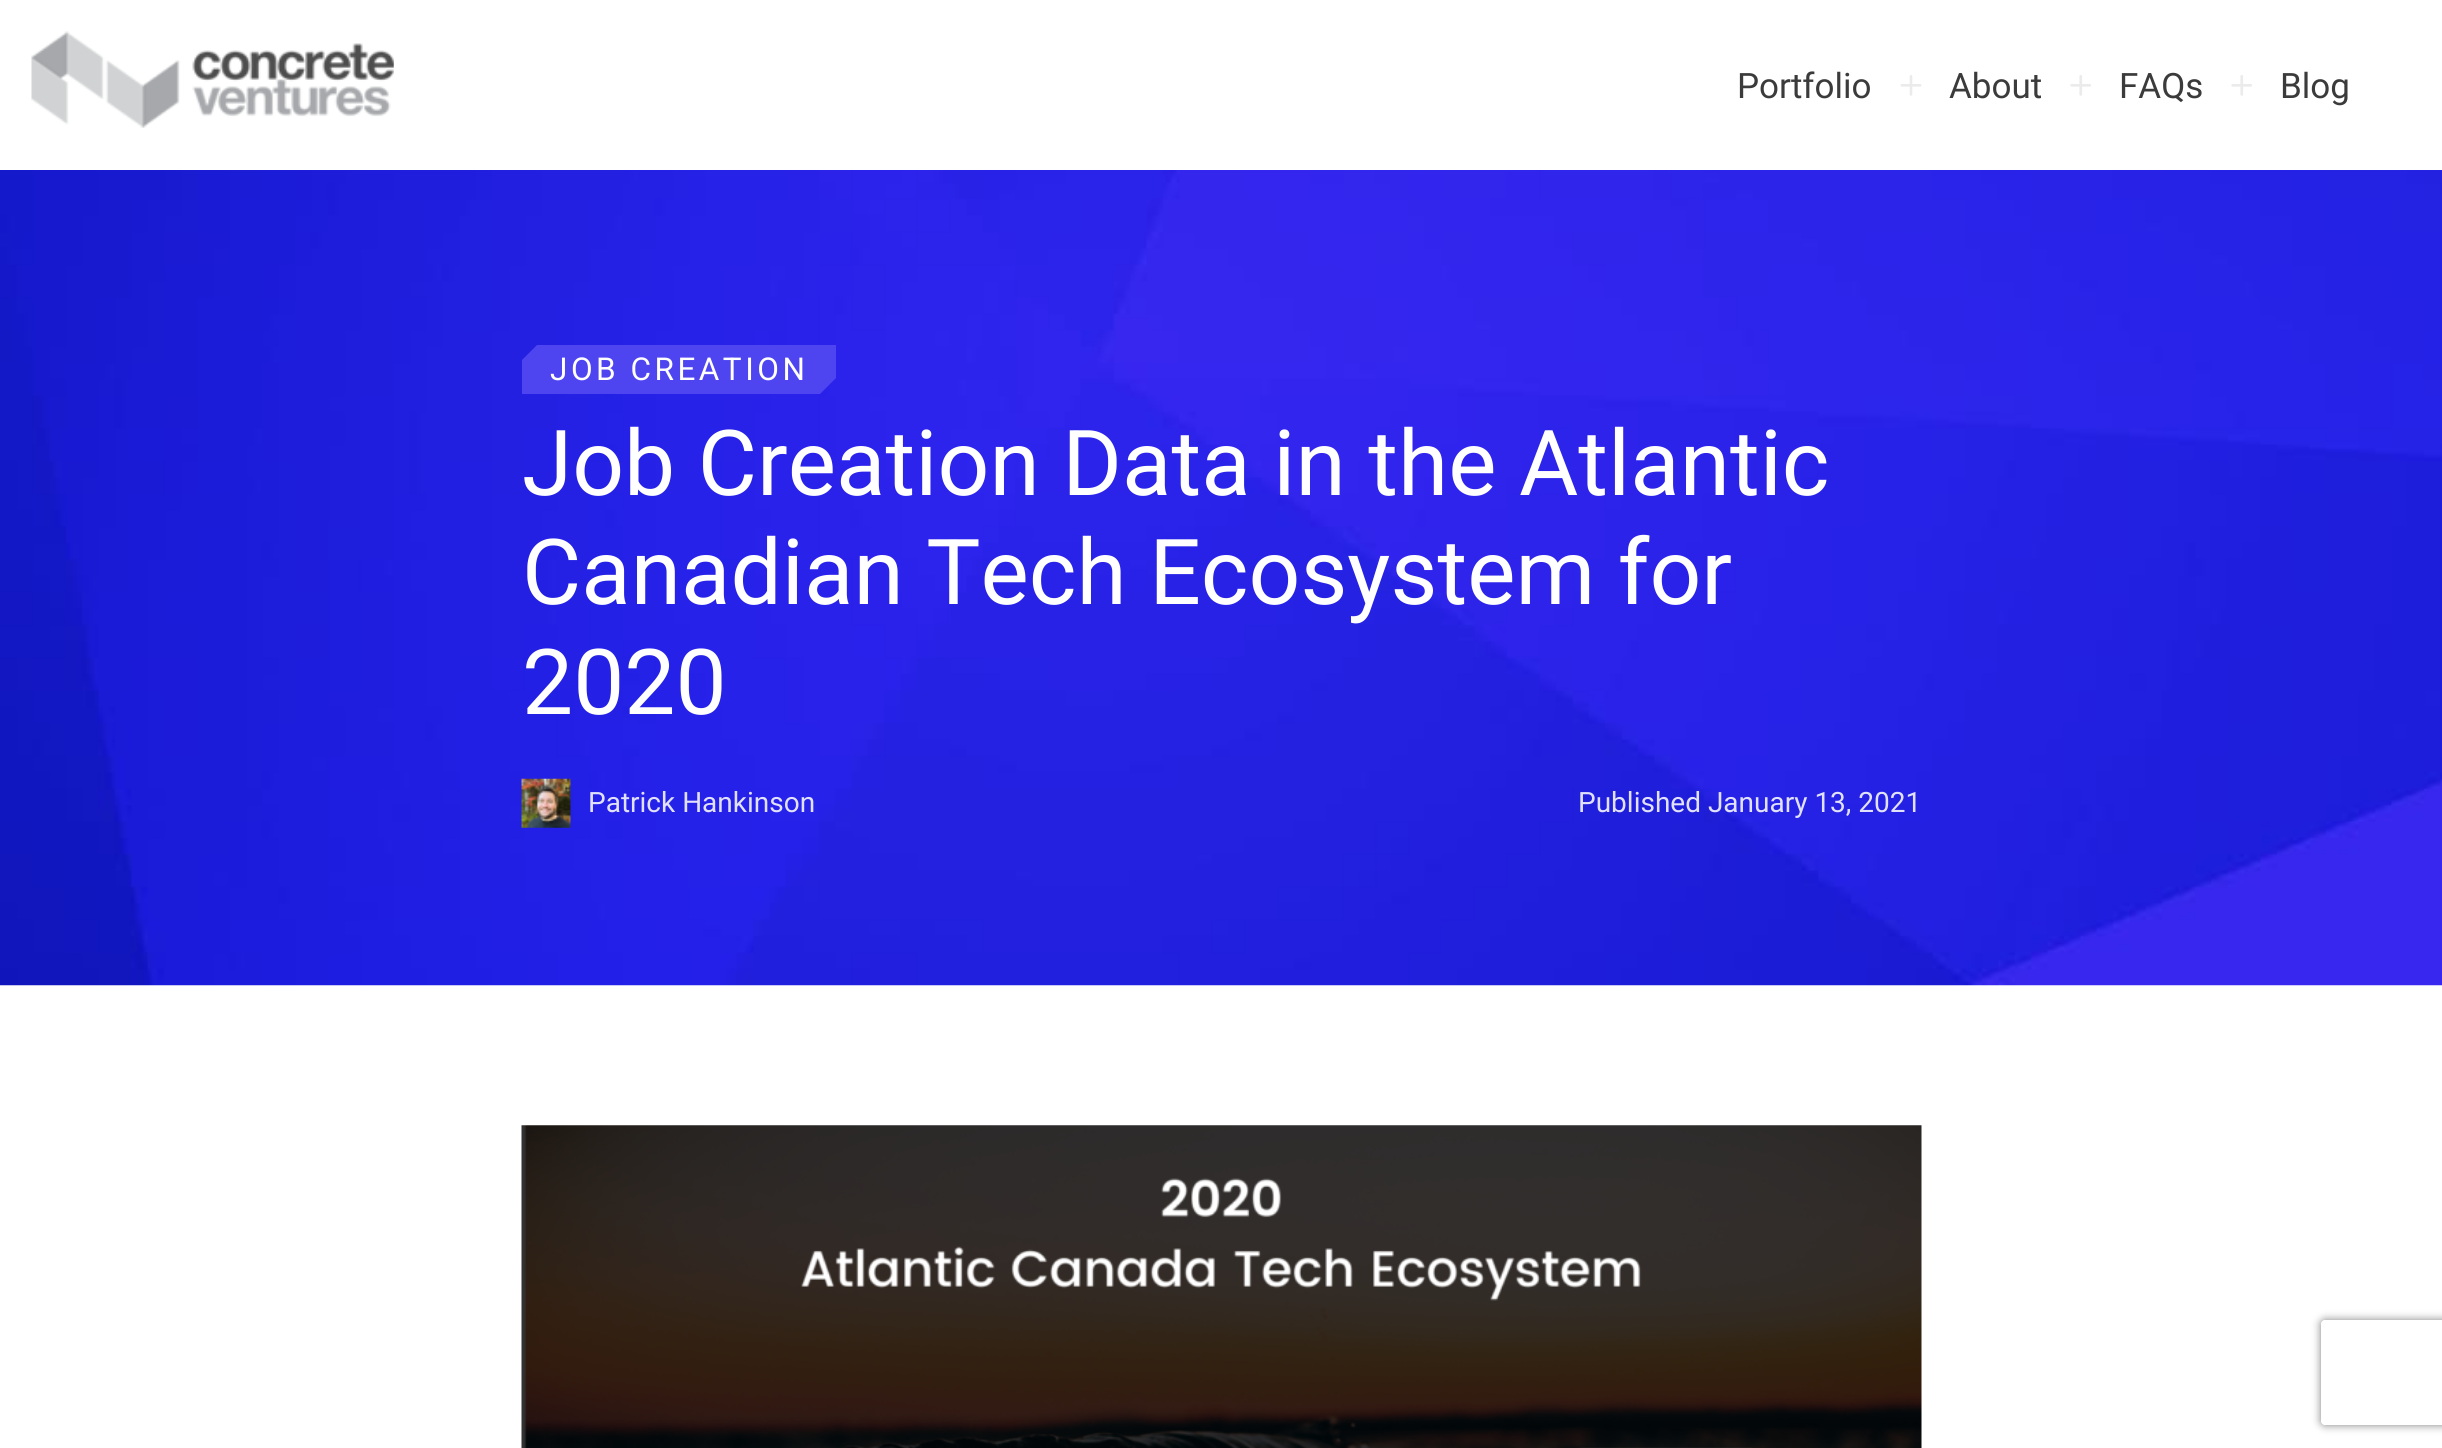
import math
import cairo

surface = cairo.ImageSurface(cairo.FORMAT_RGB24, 2442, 1448)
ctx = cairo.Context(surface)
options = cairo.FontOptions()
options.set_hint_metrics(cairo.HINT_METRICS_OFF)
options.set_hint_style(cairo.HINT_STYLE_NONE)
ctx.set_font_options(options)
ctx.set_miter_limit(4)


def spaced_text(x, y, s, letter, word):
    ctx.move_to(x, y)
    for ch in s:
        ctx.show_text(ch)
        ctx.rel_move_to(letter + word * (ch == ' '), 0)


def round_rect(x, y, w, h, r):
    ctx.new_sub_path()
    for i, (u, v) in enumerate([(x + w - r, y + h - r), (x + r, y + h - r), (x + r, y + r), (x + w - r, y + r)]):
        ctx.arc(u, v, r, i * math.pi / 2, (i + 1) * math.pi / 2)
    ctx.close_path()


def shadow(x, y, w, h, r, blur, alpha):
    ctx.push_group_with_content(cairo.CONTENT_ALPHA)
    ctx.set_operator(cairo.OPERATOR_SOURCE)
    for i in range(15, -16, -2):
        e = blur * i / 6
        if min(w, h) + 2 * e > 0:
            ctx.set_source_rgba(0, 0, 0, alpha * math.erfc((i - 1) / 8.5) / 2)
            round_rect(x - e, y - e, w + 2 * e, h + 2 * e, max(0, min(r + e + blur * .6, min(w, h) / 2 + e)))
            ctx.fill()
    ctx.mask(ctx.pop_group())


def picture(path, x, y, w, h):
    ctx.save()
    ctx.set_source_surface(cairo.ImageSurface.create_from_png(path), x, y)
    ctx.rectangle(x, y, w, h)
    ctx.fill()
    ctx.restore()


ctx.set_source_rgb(1, 1, 1)
ctx.paint()
picture("img1.png", 31, 31, 363, 97)
ctx.select_font_face("Roboto")
ctx.set_font_size(35)
ctx.set_source_rgb(0.231, 0.231, 0.231)
ctx.move_to(1737, 98)
ctx.show_text("Portfolio")
picture("img2.png", 1900, 75, 22, 21)
ctx.move_to(1949, 98)
ctx.show_text("About")
picture("img3.png", 2070, 75, 21, 21)
ctx.move_to(2119, 98)
ctx.show_text("FAQs")
picture("img3.png", 2231, 75, 21, 21)
ctx.move_to(2280, 98)
ctx.show_text("Blog")
picture("img4.png", 0, 170, 2442, 816)
ctx.set_source_rgb(0.306, 0.271, 0.941)
ctx.new_path()
ctx.move_to(522, 360)
ctx.line_to(537, 345)
ctx.line_to(836, 345)
ctx.line_to(836, 378)
ctx.line_to(820, 394)
ctx.line_to(522, 394)
ctx.close_path()
ctx.fill()
ctx.set_font_size(31.5)
ctx.set_source_rgb(1, 1, 1)
spaced_text(550, 380, "JOB CREATION", 3.5, 0)
ctx.set_font_size(91)
ctx.move_to(522, 495)
ctx.show_text("Job Creation Data in the Atlantic")
ctx.move_to(522, 604)
ctx.show_text("Canadian Tech Ecosystem for")
ctx.move_to(522, 714)
ctx.show_text("2020")
picture("img5.png", 521, 778, 50, 50)
ctx.set_font_size(28)
ctx.set_source_rgb(0.886, 0.882, 0.988)
ctx.move_to(588, 812)
ctx.show_text("Patrick Hankinson")
ctx.move_to(1578, 812)
ctx.show_text("Published January 13, 2021")
picture("img6.png", 521, 1125, 1401, 323)
ctx.save()
ctx.set_fill_rule(cairo.FILL_RULE_EVEN_ODD)
ctx.new_path()
ctx.move_to(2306, 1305)
ctx.line_to(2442, 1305)
ctx.line_to(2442, 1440)
ctx.line_to(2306, 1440)
ctx.close_path()
ctx.move_to(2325, 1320)
ctx.line_to(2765, 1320)
ctx.curve_to(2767, 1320, 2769, 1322, 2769, 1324)
ctx.line_to(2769, 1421)
ctx.curve_to(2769, 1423, 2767, 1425, 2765, 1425)
ctx.line_to(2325, 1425)
ctx.curve_to(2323, 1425, 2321, 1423, 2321, 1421)
ctx.line_to(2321, 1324)
ctx.curve_to(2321, 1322, 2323, 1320, 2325, 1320)
ctx.close_path()
ctx.clip()
ctx.set_source_rgb(0.502, 0.502, 0.502)
shadow(2321, 1320, 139, 105, 4, 4.5, 1)
ctx.restore()
surface.write_to_png("page.png")
